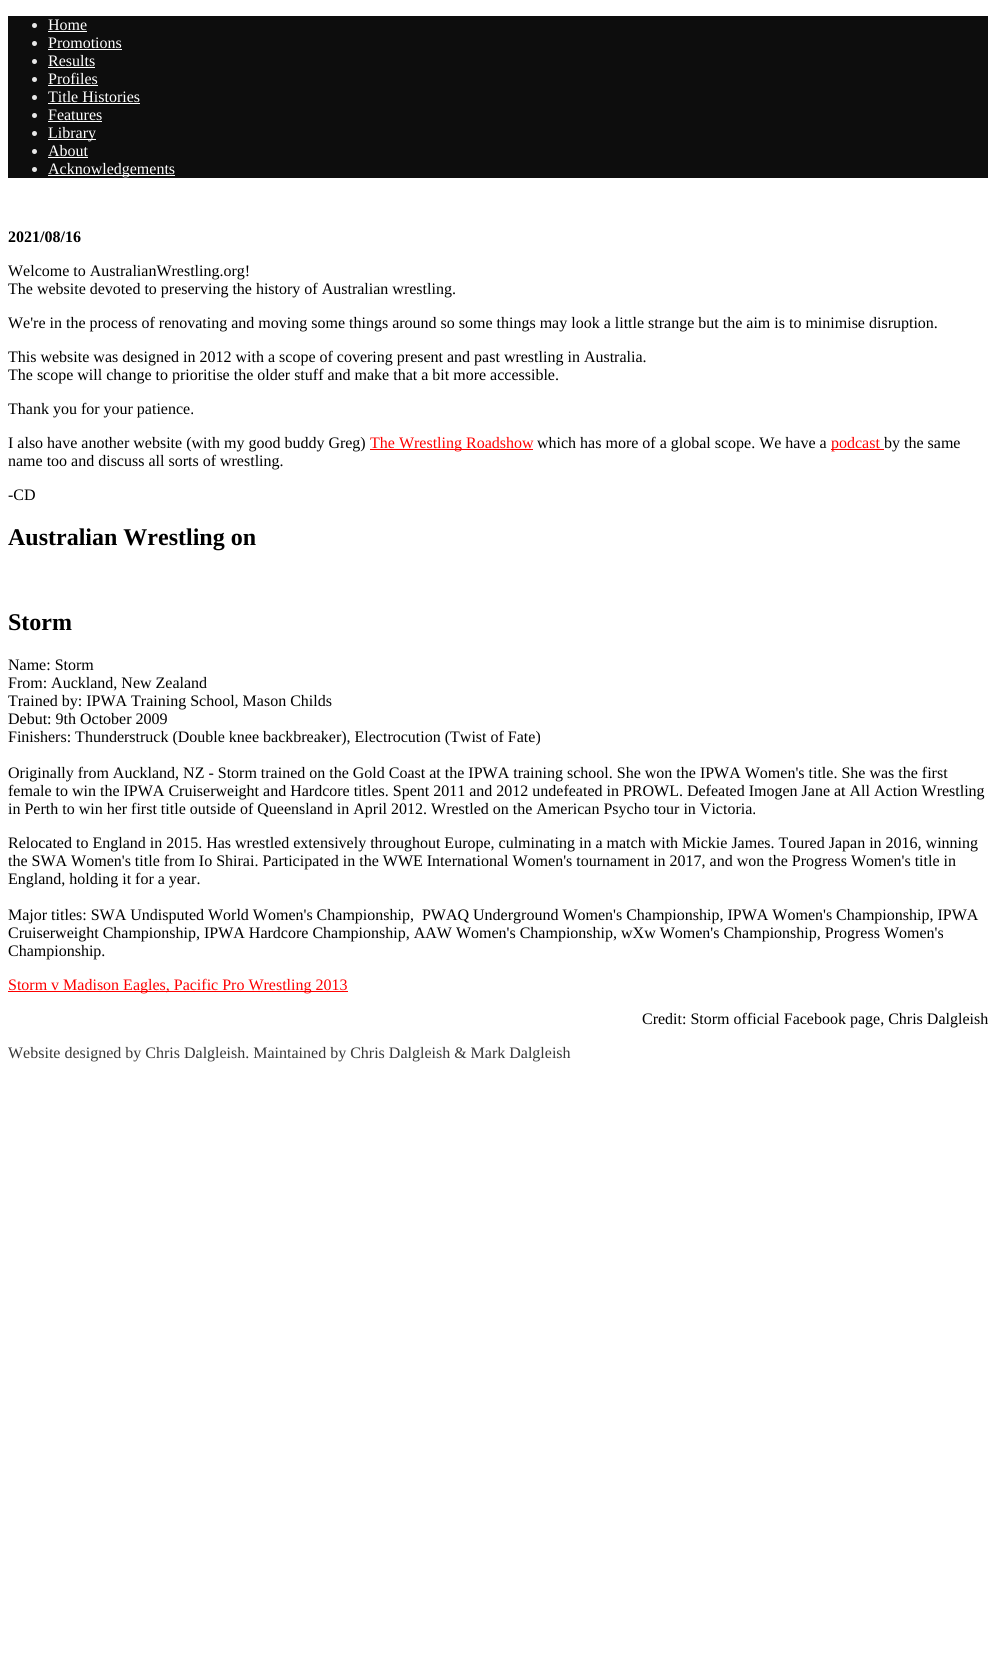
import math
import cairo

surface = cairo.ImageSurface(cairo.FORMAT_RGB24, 996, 1670)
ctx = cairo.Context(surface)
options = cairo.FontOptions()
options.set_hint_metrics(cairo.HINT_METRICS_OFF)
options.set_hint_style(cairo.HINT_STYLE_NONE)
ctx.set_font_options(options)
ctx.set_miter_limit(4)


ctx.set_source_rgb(1, 1, 1)
ctx.paint()
ctx.set_source_rgb(0.051, 0.051, 0.051)
ctx.rectangle(8, 16, 980, 162)
ctx.fill()
ctx.set_source_rgb(0.906, 0.906, 0.906)
ctx.arc(34.5, 25.5, 2.5, 0, 2 * math.pi)
ctx.fill()
ctx.select_font_face("Liberation Serif")
ctx.set_font_size(16)
ctx.set_source_rgb(1, 1, 1)
ctx.move_to(48, 30)
ctx.show_text("Home")
ctx.rectangle(48, 31, 39, 1)
ctx.fill()
ctx.set_source_rgb(0.906, 0.906, 0.906)
ctx.arc(34.5, 43.5, 2.5, 0, 2 * math.pi)
ctx.fill()
ctx.set_source_rgb(1, 1, 1)
ctx.move_to(48, 48)
ctx.show_text("Promotions")
ctx.rectangle(48, 49, 74, 1)
ctx.fill()
ctx.set_source_rgb(0.906, 0.906, 0.906)
ctx.arc(34.5, 61.5, 2.5, 0, 2 * math.pi)
ctx.fill()
ctx.set_source_rgb(1, 1, 1)
ctx.move_to(48, 66)
ctx.show_text("Results")
ctx.rectangle(48, 67, 47, 1)
ctx.fill()
ctx.set_source_rgb(0.906, 0.906, 0.906)
ctx.arc(34.5, 79.5, 2.5, 0, 2 * math.pi)
ctx.fill()
ctx.set_source_rgb(1, 1, 1)
ctx.move_to(48, 84)
ctx.show_text("Profiles")
ctx.rectangle(48, 85, 50, 1)
ctx.fill()
ctx.set_source_rgb(0.906, 0.906, 0.906)
ctx.arc(34.5, 97.5, 2.5, 0, 2 * math.pi)
ctx.fill()
ctx.set_source_rgb(1, 1, 1)
ctx.move_to(48, 102)
ctx.show_text("Title Histories")
ctx.rectangle(48, 103, 92, 1)
ctx.fill()
ctx.set_source_rgb(0.906, 0.906, 0.906)
ctx.arc(34.5, 115.5, 2.5, 0, 2 * math.pi)
ctx.fill()
ctx.set_source_rgb(1, 1, 1)
ctx.move_to(48, 120)
ctx.show_text("Features")
ctx.rectangle(48, 121, 54, 1)
ctx.fill()
ctx.set_source_rgb(0.906, 0.906, 0.906)
ctx.arc(34.5, 133.5, 2.5, 0, 2 * math.pi)
ctx.fill()
ctx.set_source_rgb(1, 1, 1)
ctx.rectangle(48, 139, 48, 1)
ctx.fill()
ctx.move_to(48, 138)
ctx.show_text("Library")
ctx.set_source_rgb(0.906, 0.906, 0.906)
ctx.new_path()
ctx.arc(34.5, 151.5, 2.5, 0, 2 * math.pi)
ctx.fill()
ctx.set_source_rgb(1, 1, 1)
ctx.move_to(48, 156)
ctx.show_text("About")
ctx.rectangle(48, 157, 40, 1)
ctx.fill()
ctx.set_source_rgb(0.906, 0.906, 0.906)
ctx.arc(34.5, 169.5, 2.5, 0, 2 * math.pi)
ctx.fill()
ctx.set_source_rgb(1, 1, 1)
ctx.rectangle(48, 175, 127, 1)
ctx.fill()
ctx.move_to(48, 174)
ctx.show_text("Acknowledgements")
ctx.select_font_face("Liberation Serif", cairo.FONT_SLANT_NORMAL, cairo.FONT_WEIGHT_BOLD)
ctx.set_source_rgb(0, 0, 0)
ctx.move_to(8, 242)
ctx.show_text("2021/08/16")
ctx.select_font_face("Liberation Serif")
ctx.move_to(8, 276)
ctx.show_text("Welcome to AustralianWrestling.org!")
ctx.move_to(8, 294)
ctx.show_text("The website devoted to preserving the history of Australian wrestling.")
ctx.move_to(8, 328)
ctx.show_text("We're in the process of renovating and moving some things around so some things may look a little strange but the aim is to minimise disruption.")
ctx.move_to(8, 362)
ctx.show_text("This website was designed in 2012 with a scope of covering present and past wrestling in Australia.")
ctx.move_to(8, 380)
ctx.show_text("The scope will change to prioritise the older stuff and make that a bit more accessible.")
ctx.move_to(8, 414)
ctx.show_text("Thank you for your patience.")
ctx.move_to(8, 448)
ctx.show_text("I also have another website (with my good buddy Greg)")
ctx.set_source_rgb(0.988, 0, 0)
ctx.rectangle(370, 449, 163, 1)
ctx.fill()
ctx.move_to(370, 448)
ctx.show_text("The Wrestling Roadshow")
ctx.set_source_rgb(0, 0, 0)
ctx.move_to(537, 448)
ctx.show_text("which has more of a global scope. We have a")
ctx.set_source_rgb(0.988, 0, 0)
ctx.rectangle(831, 449, 53, 1)
ctx.fill()
ctx.move_to(831, 448)
ctx.show_text("podcast")
ctx.set_source_rgb(0, 0, 0)
ctx.move_to(884, 448)
ctx.show_text("by the same")
ctx.move_to(8, 466)
ctx.show_text("name too and discuss all sorts of wrestling.")
ctx.move_to(8, 500)
ctx.show_text("-CD")
ctx.select_font_face("Liberation Serif", cairo.FONT_SLANT_NORMAL, cairo.FONT_WEIGHT_BOLD)
ctx.set_font_size(24)
ctx.move_to(8, 545)
ctx.show_text("Australian Wrestling on")
ctx.move_to(8, 630)
ctx.show_text("Storm")
ctx.select_font_face("Liberation Serif")
ctx.set_font_size(16)
ctx.move_to(8, 670)
ctx.show_text("Name: Storm")
ctx.move_to(8, 688)
ctx.show_text("From: Auckland, New Zealand")
ctx.move_to(8, 706)
ctx.show_text("Trained by: IPWA Training School, Mason Childs")
ctx.move_to(8, 724)
ctx.show_text("Debut: 9th October 2009")
ctx.move_to(8, 742)
ctx.show_text("Finishers: Thunderstruck (Double knee backbreaker), Electrocution (Twist of Fate)")
ctx.move_to(8, 778)
ctx.show_text("Originally from Auckland, NZ - Storm trained on the Gold Coast at the IPWA training school. She won the IPWA Women's title. She was the first")
ctx.move_to(8, 796)
ctx.show_text("female to win the IPWA Cruiserweight and Hardcore titles. Spent 2011 and 2012 undefeated in PROWL. Defeated Imogen Jane at All Action Wrestling")
ctx.move_to(8, 814)
ctx.show_text("in Perth to win her first title outside of Queensland in April 2012. Wrestled on the American Psycho tour in Victoria.")
ctx.move_to(8, 848)
ctx.show_text("Relocated to England in 2015. Has wrestled extensively throughout Europe, culminating in a match with Mickie James. Toured Japan in 2016, winning")
ctx.move_to(8, 866)
ctx.show_text("the SWA Women's title from Io Shirai. Participated in the WWE International Women's tournament in 2017, and won the Progress Women's title in")
ctx.move_to(8, 884)
ctx.show_text("England, holding it for a year.")
ctx.move_to(8, 920)
ctx.show_text("Major titles: SWA Undisputed World Women's Championship,  PWAQ Underground Women's Championship, IPWA Women's Championship, IPWA")
ctx.move_to(8, 938)
ctx.show_text("Cruiserweight Championship, IPWA Hardcore Championship, AAW Women's Championship, wXw Women's Championship, Progress Women's")
ctx.move_to(8, 956)
ctx.show_text("Championship.")
ctx.set_source_rgb(0.988, 0, 0)
ctx.rectangle(8, 991, 340, 1)
ctx.fill()
ctx.move_to(8, 990)
ctx.show_text("Storm v Madison Eagles, Pacific Pro Wrestling 2013")
ctx.set_source_rgb(0, 0, 0)
ctx.move_to(642, 1024)
ctx.show_text("Credit: Storm official Facebook page, Chris Dalgleish")
ctx.set_source_rgb(0.22, 0.22, 0.22)
ctx.move_to(8, 1058)
ctx.show_text("Website designed by Chris Dalgleish. Maintained by Chris Dalgleish & Mark Dalgleish")
surface.write_to_png("page.png")
